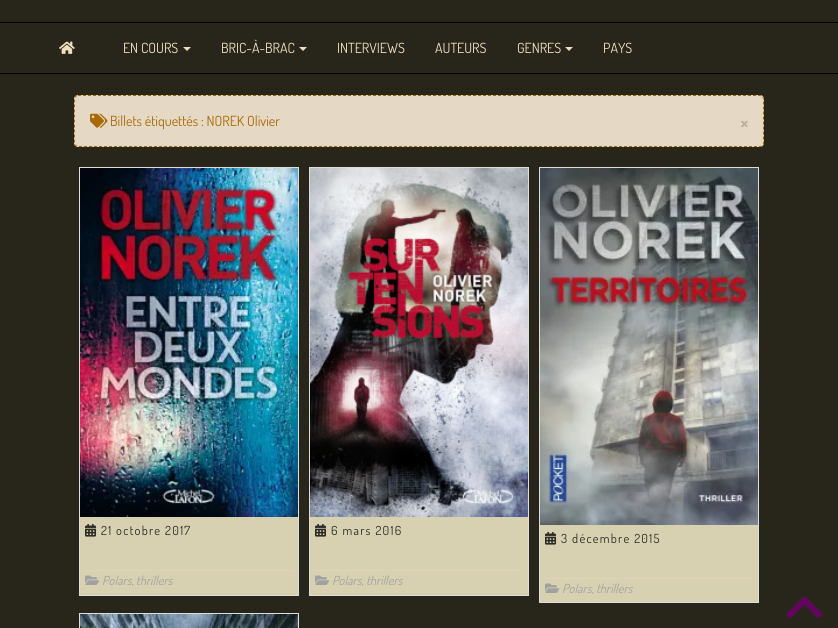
import math
import cairo

surface = cairo.ImageSurface(cairo.FORMAT_RGB24, 838, 628)
ctx = cairo.Context(surface)
options = cairo.FontOptions()
options.set_hint_metrics(cairo.HINT_METRICS_OFF)
options.set_hint_style(cairo.HINT_STYLE_NONE)
ctx.set_font_options(options)
ctx.set_miter_limit(4)


def spaced_text(x, y, s, letter, word):
    ctx.move_to(x, y)
    for ch in s:
        ctx.show_text(ch)
        ctx.rel_move_to(letter + word * (ch == ' '), 0)


def round_rect(x, y, w, h, r):
    ctx.new_sub_path()
    for i, (u, v) in enumerate([(x + w - r, y + h - r), (x + r, y + h - r), (x + r, y + r), (x + w - r, y + r)]):
        ctx.arc(u, v, r, i * math.pi / 2, (i + 1) * math.pi / 2)
    ctx.close_path()


def picture(path, x, y, w, h):
    ctx.save()
    ctx.set_source_surface(cairo.ImageSurface.create_from_png(path), x, y)
    ctx.rectangle(x, y, w, h)
    ctx.fill()
    ctx.restore()


ctx.set_source_rgb(0.157, 0.149, 0.106)
ctx.paint()
ctx.set_source_rgb(0, 0, 0)
ctx.rectangle(0, 22, 838, 1)
ctx.fill()
ctx.rectangle(0, 73, 838, 1)
ctx.fill()
picture("img1.png", 59, 41, 16, 13)
ctx.select_font_face("Dosis")
ctx.set_font_size(14)
ctx.set_source_rgb(0.941, 0.875, 0.745)
ctx.move_to(123, 53)
ctx.show_text("EN COURS")
ctx.new_path()
ctx.move_to(183, 47)
ctx.line_to(191, 47)
ctx.line_to(187, 51)
ctx.close_path()
ctx.fill()
ctx.move_to(221, 53)
ctx.show_text("BRIC-À-BRAC")
ctx.new_path()
ctx.move_to(299, 47)
ctx.line_to(307, 47)
ctx.line_to(303, 51)
ctx.close_path()
ctx.fill()
ctx.move_to(337, 53)
ctx.show_text("INTERVIEWS")
ctx.move_to(435, 53)
ctx.show_text("AUTEURS")
ctx.move_to(517, 53)
ctx.show_text("GENRES")
ctx.new_path()
ctx.move_to(565, 47)
ctx.line_to(573, 47)
ctx.line_to(569, 51)
ctx.close_path()
ctx.fill()
ctx.move_to(603, 53)
ctx.show_text("PAYS")
ctx.set_source_rgb(0.898, 0.851, 0.773)
round_rect(74, 95, 690, 52, 4)
ctx.fill()
ctx.new_path()
ctx.move_to(78, 95.5)
ctx.line_to(760, 95.5)
ctx.curve_to(762, 95.5, 763.5, 97, 763.5, 99)
ctx.line_to(763.5, 143)
ctx.curve_to(763.5, 145, 762, 146.5, 760, 146.5)
ctx.line_to(78, 146.5)
ctx.curve_to(76, 146.5, 74.5, 145, 74.5, 143)
ctx.line_to(74.5, 99)
ctx.curve_to(74.5, 97, 76, 95.5, 78, 95.5)
ctx.close_path()
ctx.set_source_rgb(0.659, 0.416, 0.024)
ctx.set_line_width(1)
ctx.set_dash([3, 2])
ctx.stroke()
picture("img2.png", 90, 113, 18, 15)
ctx.move_to(110, 126)
ctx.show_text("Billets étiquettés : NOREK Olivier")
ctx.select_font_face("Dosis", cairo.FONT_SLANT_NORMAL, cairo.FONT_WEIGHT_BOLD)
ctx.set_font_size(21)
ctx.set_source_rgb(0.718, 0.682, 0.62)
ctx.move_to(740, 130)
ctx.show_text("×")
ctx.set_source_rgb(0.847, 0.82, 0.694)
ctx.rectangle(80, 517, 218, 78)
ctx.fill()
ctx.rectangle(79.5, 167.5, 219, 428)
ctx.set_source_rgb(0.867, 0.867, 0.867)
ctx.set_dash([])
ctx.stroke()
picture("img3.png", 80, 168, 218, 349)
picture("img4.png", 85, 524, 12, 13)
ctx.select_font_face("Dosis")
ctx.set_font_size(12.5)
ctx.set_source_rgb(0.169, 0.165, 0.145)
spaced_text(101, 535, "21 octobre 2017", 1.25, 0)
ctx.set_source_rgb(0.878, 0.82, 0.722)
ctx.rectangle(85, 570, 208, 1)
ctx.fill()
picture("img5.png", 85, 575, 14, 10)
ctx.select_font_face("Dosis", cairo.FONT_SLANT_ITALIC)
ctx.set_source_rgb(0.631, 0.631, 0.631)
ctx.move_to(102, 585)
ctx.show_text("Polars, thrillers")
ctx.set_source_rgb(0.847, 0.82, 0.694)
ctx.rectangle(310, 517, 218, 78)
ctx.fill()
ctx.rectangle(309.5, 167.5, 219, 428)
ctx.set_source_rgb(0.867, 0.867, 0.867)
ctx.stroke()
picture("img6.png", 310, 168, 218, 349)
picture("img4.png", 315, 524, 12, 13)
ctx.select_font_face("Dosis")
ctx.set_source_rgb(0.169, 0.165, 0.145)
spaced_text(331, 535, "6 mars 2016", 1.25, 0)
ctx.set_source_rgb(0.878, 0.82, 0.722)
ctx.rectangle(315, 570, 208, 1)
ctx.fill()
picture("img5.png", 315, 575, 14, 10)
ctx.select_font_face("Dosis", cairo.FONT_SLANT_ITALIC)
ctx.set_source_rgb(0.631, 0.631, 0.631)
ctx.move_to(332, 585)
ctx.show_text("Polars, thrillers")
ctx.set_source_rgb(0.847, 0.82, 0.694)
ctx.rectangle(540, 525, 218, 77)
ctx.fill()
ctx.rectangle(539.5, 167.5, 219, 435)
ctx.set_source_rgb(0.867, 0.867, 0.867)
ctx.stroke()
picture("img7.png", 540, 168, 218, 357)
picture("img4.png", 545, 532, 12, 13)
ctx.select_font_face("Dosis")
ctx.set_source_rgb(0.169, 0.165, 0.145)
spaced_text(561, 543, "3 décembre 2015", 1.25, 0)
ctx.set_source_rgb(0.878, 0.82, 0.722)
ctx.rectangle(545, 578, 208, 1)
ctx.fill()
picture("img5.png", 545, 583, 14, 10)
ctx.select_font_face("Dosis", cairo.FONT_SLANT_ITALIC)
ctx.set_source_rgb(0.631, 0.631, 0.631)
ctx.move_to(562, 593)
ctx.show_text("Polars, thrillers")
ctx.rectangle(79.5, 613.5, 219, 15)
ctx.set_source_rgb(0.867, 0.867, 0.867)
ctx.stroke()
picture("img8.png", 80, 614, 218, 14)
picture("img9.png", 786, 596, 37, 23)
surface.write_to_png("page.png")
